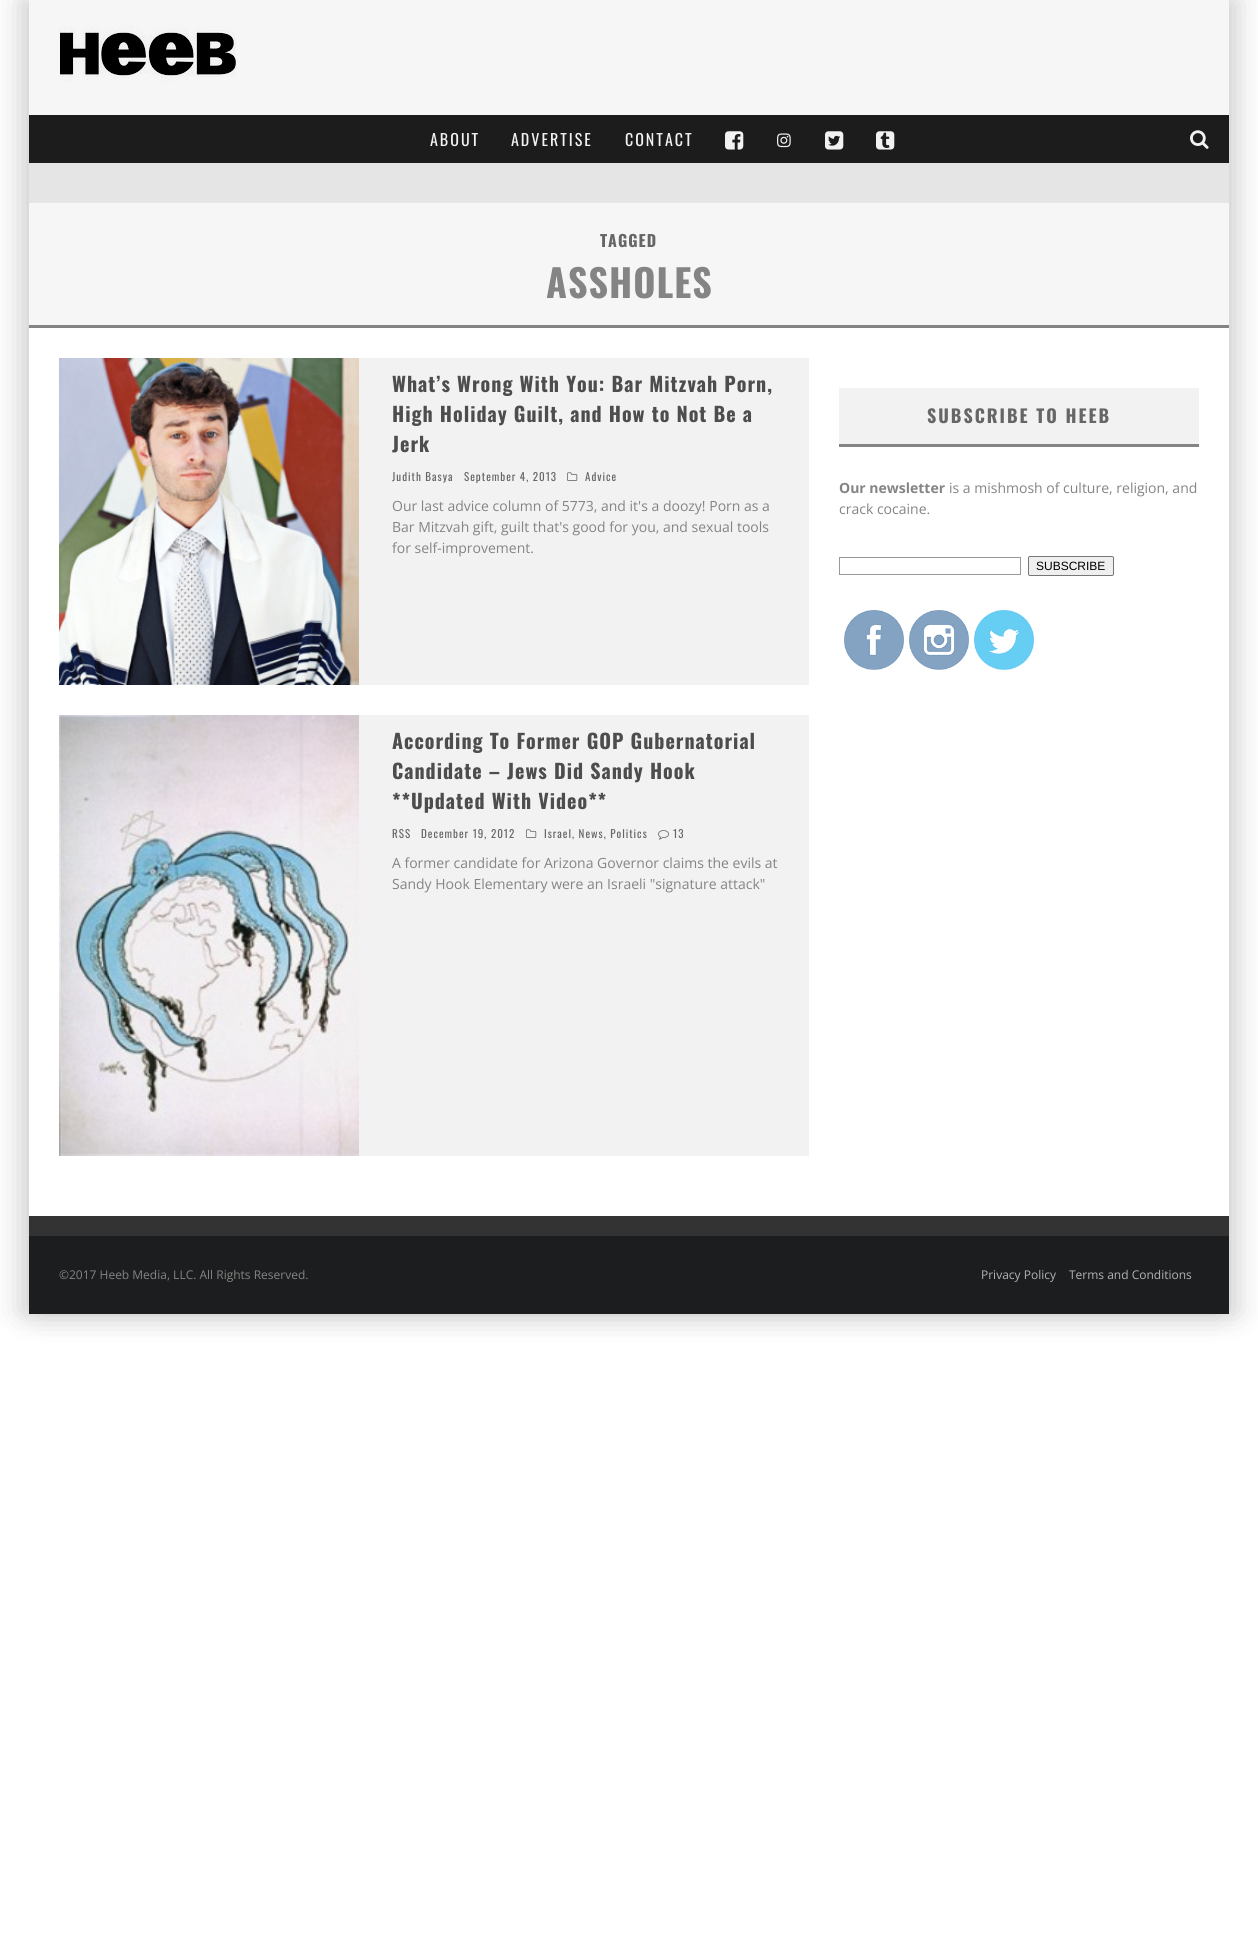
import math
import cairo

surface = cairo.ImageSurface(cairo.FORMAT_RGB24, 1258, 1951)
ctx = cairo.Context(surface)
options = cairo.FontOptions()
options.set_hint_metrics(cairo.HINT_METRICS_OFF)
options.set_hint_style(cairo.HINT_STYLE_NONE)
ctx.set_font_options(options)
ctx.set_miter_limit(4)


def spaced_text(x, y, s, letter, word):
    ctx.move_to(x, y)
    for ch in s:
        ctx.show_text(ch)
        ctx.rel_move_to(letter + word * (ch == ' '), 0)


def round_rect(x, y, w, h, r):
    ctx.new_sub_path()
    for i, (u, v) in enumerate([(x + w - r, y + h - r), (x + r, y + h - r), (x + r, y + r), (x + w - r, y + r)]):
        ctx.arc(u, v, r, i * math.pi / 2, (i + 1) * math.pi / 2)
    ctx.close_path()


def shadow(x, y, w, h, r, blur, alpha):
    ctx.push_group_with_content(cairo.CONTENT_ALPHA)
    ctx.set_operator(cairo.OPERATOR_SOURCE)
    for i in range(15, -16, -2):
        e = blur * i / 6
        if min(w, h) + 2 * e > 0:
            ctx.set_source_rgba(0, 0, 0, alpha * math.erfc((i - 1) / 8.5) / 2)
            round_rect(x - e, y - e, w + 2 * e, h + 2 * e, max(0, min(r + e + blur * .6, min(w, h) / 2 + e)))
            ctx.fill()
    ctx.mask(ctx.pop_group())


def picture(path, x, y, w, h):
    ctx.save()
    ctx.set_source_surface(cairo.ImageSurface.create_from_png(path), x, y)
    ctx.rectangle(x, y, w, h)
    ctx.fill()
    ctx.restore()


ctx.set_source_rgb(1, 1, 1)
ctx.paint()
ctx.save()
ctx.set_fill_rule(cairo.FILL_RULE_EVEN_ODD)
ctx.new_path()
ctx.move_to(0, 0)
ctx.line_to(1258, 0)
ctx.line_to(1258, 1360)
ctx.line_to(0, 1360)
ctx.close_path()
ctx.move_to(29, 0)
ctx.line_to(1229, 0)
ctx.line_to(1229, 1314)
ctx.line_to(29, 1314)
ctx.close_path()
ctx.clip()
ctx.set_source_rgb(0, 0, 0)
shadow(19, 0, 1200, 1314, 0, 15, 0.15)
shadow(39, 0, 1200, 1314, 0, 15, 0.15)
ctx.restore()
ctx.set_source_rgb(0.961, 0.961, 0.961)
ctx.rectangle(29, 0, 1200, 115)
ctx.fill()
picture("img1.png", 59, 26, 179, 56)
ctx.set_source_rgb(0.11, 0.11, 0.11)
ctx.rectangle(29, 115, 1200, 48)
ctx.fill()
ctx.select_font_face("Oswald")
ctx.set_font_size(16)
ctx.set_source_rgb(0.949, 0.949, 0.949)
spaced_text(430, 146, "ABOUT", 2, 0)
spaced_text(511, 146, "ADVERTISE", 2, 0)
spaced_text(625, 146, "CONTACT", 2, 0)
picture("img2.png", 725, 131, 19, 19)
picture("img3.png", 777, 133, 14, 15)
picture("img4.png", 825, 131, 19, 19)
picture("img5.png", 876, 131, 19, 19)
picture("img6.png", 1190, 130, 19, 19)
ctx.set_source_rgb(0.898, 0.898, 0.898)
ctx.rectangle(29, 163, 1200, 40)
ctx.fill()
ctx.set_source_rgb(0.961, 0.961, 0.961)
ctx.rectangle(29, 203, 1200, 122)
ctx.fill()
ctx.set_source_rgb(0.518, 0.518, 0.518)
ctx.rectangle(29, 325, 1200, 3)
ctx.fill()
ctx.select_font_face("Oswald", cairo.FONT_SLANT_NORMAL, cairo.FONT_WEIGHT_BOLD)
ctx.set_source_rgb(0.4, 0.4, 0.4)
spaced_text(600, 247, "TAGGED", 1, 0)
ctx.set_font_size(38)
ctx.set_source_rgb(0.518, 0.518, 0.518)
spaced_text(546, 298, "ASSHOLES", 1, 0)
ctx.set_source_rgb(0.949, 0.949, 0.949)
ctx.rectangle(359, 358, 450, 327)
ctx.fill()
picture("img7.png", 59, 358, 300, 327)
ctx.set_font_size(20)
ctx.set_source_rgb(0.302, 0.302, 0.302)
spaced_text(392, 392, "What’s Wrong With You: Bar Mitzvah Porn,", 1, 0)
spaced_text(392, 422, "High Holiday Guilt, and How to Not Be a", 1, 0)
spaced_text(392, 452, "Jerk", 1, 0)
ctx.select_font_face("Oswald")
ctx.set_font_size(11)
ctx.set_source_rgb(0.4, 0.4, 0.4)
spaced_text(392, 481, "Judith Basya", 1, 0)
spaced_text(464, 481, "September 4, 2013", 1, 0)
picture("img8.png", 567, 472, 11, 9)
spaced_text(585, 481, "Advice", 1, 0)
ctx.select_font_face("Open Sans")
ctx.set_font_size(14)
ctx.set_source_rgb(0.518, 0.518, 0.518)
ctx.move_to(392, 511)
ctx.show_text("Our last advice column of 5773, and it's a doozy! Porn as a")
ctx.move_to(392, 532)
ctx.show_text("Bar Mitzvah gift, guilt that's good for you, and sexual tools")
ctx.move_to(392, 553)
ctx.show_text("for self-improvement.")
ctx.set_source_rgb(0.949, 0.949, 0.949)
ctx.rectangle(359, 715, 450, 441)
ctx.fill()
picture("img9.png", 59, 715, 300, 441)
ctx.select_font_face("Oswald", cairo.FONT_SLANT_NORMAL, cairo.FONT_WEIGHT_BOLD)
ctx.set_font_size(20)
ctx.set_source_rgb(0.302, 0.302, 0.302)
spaced_text(392, 749, "According To Former GOP Gubernatorial", 1, 0)
spaced_text(392, 779, "Candidate – Jews Did Sandy Hook", 1, 0)
spaced_text(392, 809, "**Updated With Video**", 1, 0)
ctx.select_font_face("Oswald")
ctx.set_font_size(11)
ctx.set_source_rgb(0.4, 0.4, 0.4)
spaced_text(392, 838, "RSS", 1, 0)
spaced_text(421, 838, "December 19, 2012", 1, 0)
picture("img8.png", 526, 829, 11, 9)
spaced_text(544, 838, "Israel, News, Politics", 1, 0)
picture("img10.png", 658, 830, 11, 10)
spaced_text(673, 838, "13", 1, 0)
ctx.select_font_face("Open Sans")
ctx.set_font_size(14)
ctx.set_source_rgb(0.518, 0.518, 0.518)
ctx.move_to(392, 868)
ctx.show_text("A former candidate for Arizona Governor claims the evils at")
ctx.move_to(392, 889)
ctx.show_text("Sandy Hook Elementary were an Israeli \"signature attack\"")
ctx.set_source_rgb(0.949, 0.949, 0.949)
ctx.rectangle(839, 388, 360, 56)
ctx.fill()
ctx.set_source_rgb(0.518, 0.518, 0.518)
ctx.rectangle(839, 444, 360, 3)
ctx.fill()
ctx.select_font_face("Oswald", cairo.FONT_SLANT_NORMAL, cairo.FONT_WEIGHT_BOLD)
ctx.set_font_size(18)
ctx.set_source_rgb(0.4, 0.4, 0.4)
spaced_text(927, 423, "SUBSCRIBE TO HEEB", 2, 0)
ctx.select_font_face("Open Sans", cairo.FONT_SLANT_NORMAL, cairo.FONT_WEIGHT_BOLD)
ctx.set_font_size(14)
ctx.set_source_rgb(0.518, 0.518, 0.518)
ctx.move_to(839, 493)
ctx.show_text("Our newsletter")
ctx.select_font_face("Open Sans")
ctx.move_to(949, 493)
ctx.show_text("is a mishmosh of culture, religion, and")
ctx.move_to(839, 514)
ctx.show_text("crack cocaine.")
ctx.rectangle(839.5, 557.5, 181, 17)
ctx.set_source_rgb(0.6, 0.6, 0.6)
ctx.set_line_width(1)
ctx.stroke()
ctx.set_source_rgb(0.937, 0.937, 0.937)
round_rect(1028.5, 556.5, 85, 19, 1.5)
ctx.fill_preserve()
ctx.set_source_rgb(0.463, 0.463, 0.463)
ctx.stroke()
ctx.select_font_face("Liberation Sans")
ctx.set_font_size(12)
ctx.set_source_rgb(0, 0, 0)
ctx.move_to(1036, 570)
ctx.show_text("SUBSCRIBE")
picture("img11.png", 844, 610, 60, 60)
picture("img12.png", 909, 610, 60, 60)
picture("img13.png", 974, 610, 60, 60)
ctx.set_source_rgb(0.2, 0.2, 0.2)
ctx.rectangle(29, 1216, 1200, 20)
ctx.fill()
ctx.set_source_rgb(0.11, 0.114, 0.118)
ctx.rectangle(29, 1236, 1200, 78)
ctx.fill()
ctx.select_font_face("Open Sans")
ctx.set_source_rgb(0.518, 0.518, 0.518)
ctx.move_to(59, 1279)
ctx.show_text("©2017 Heeb Media, LLC. All Rights Reserved.")
ctx.set_source_rgb(0.702, 0.702, 0.702)
ctx.move_to(981, 1279)
ctx.show_text("Privacy Policy")
ctx.move_to(1069, 1279)
ctx.show_text("Terms and Conditions")
surface.write_to_png("page.png")
